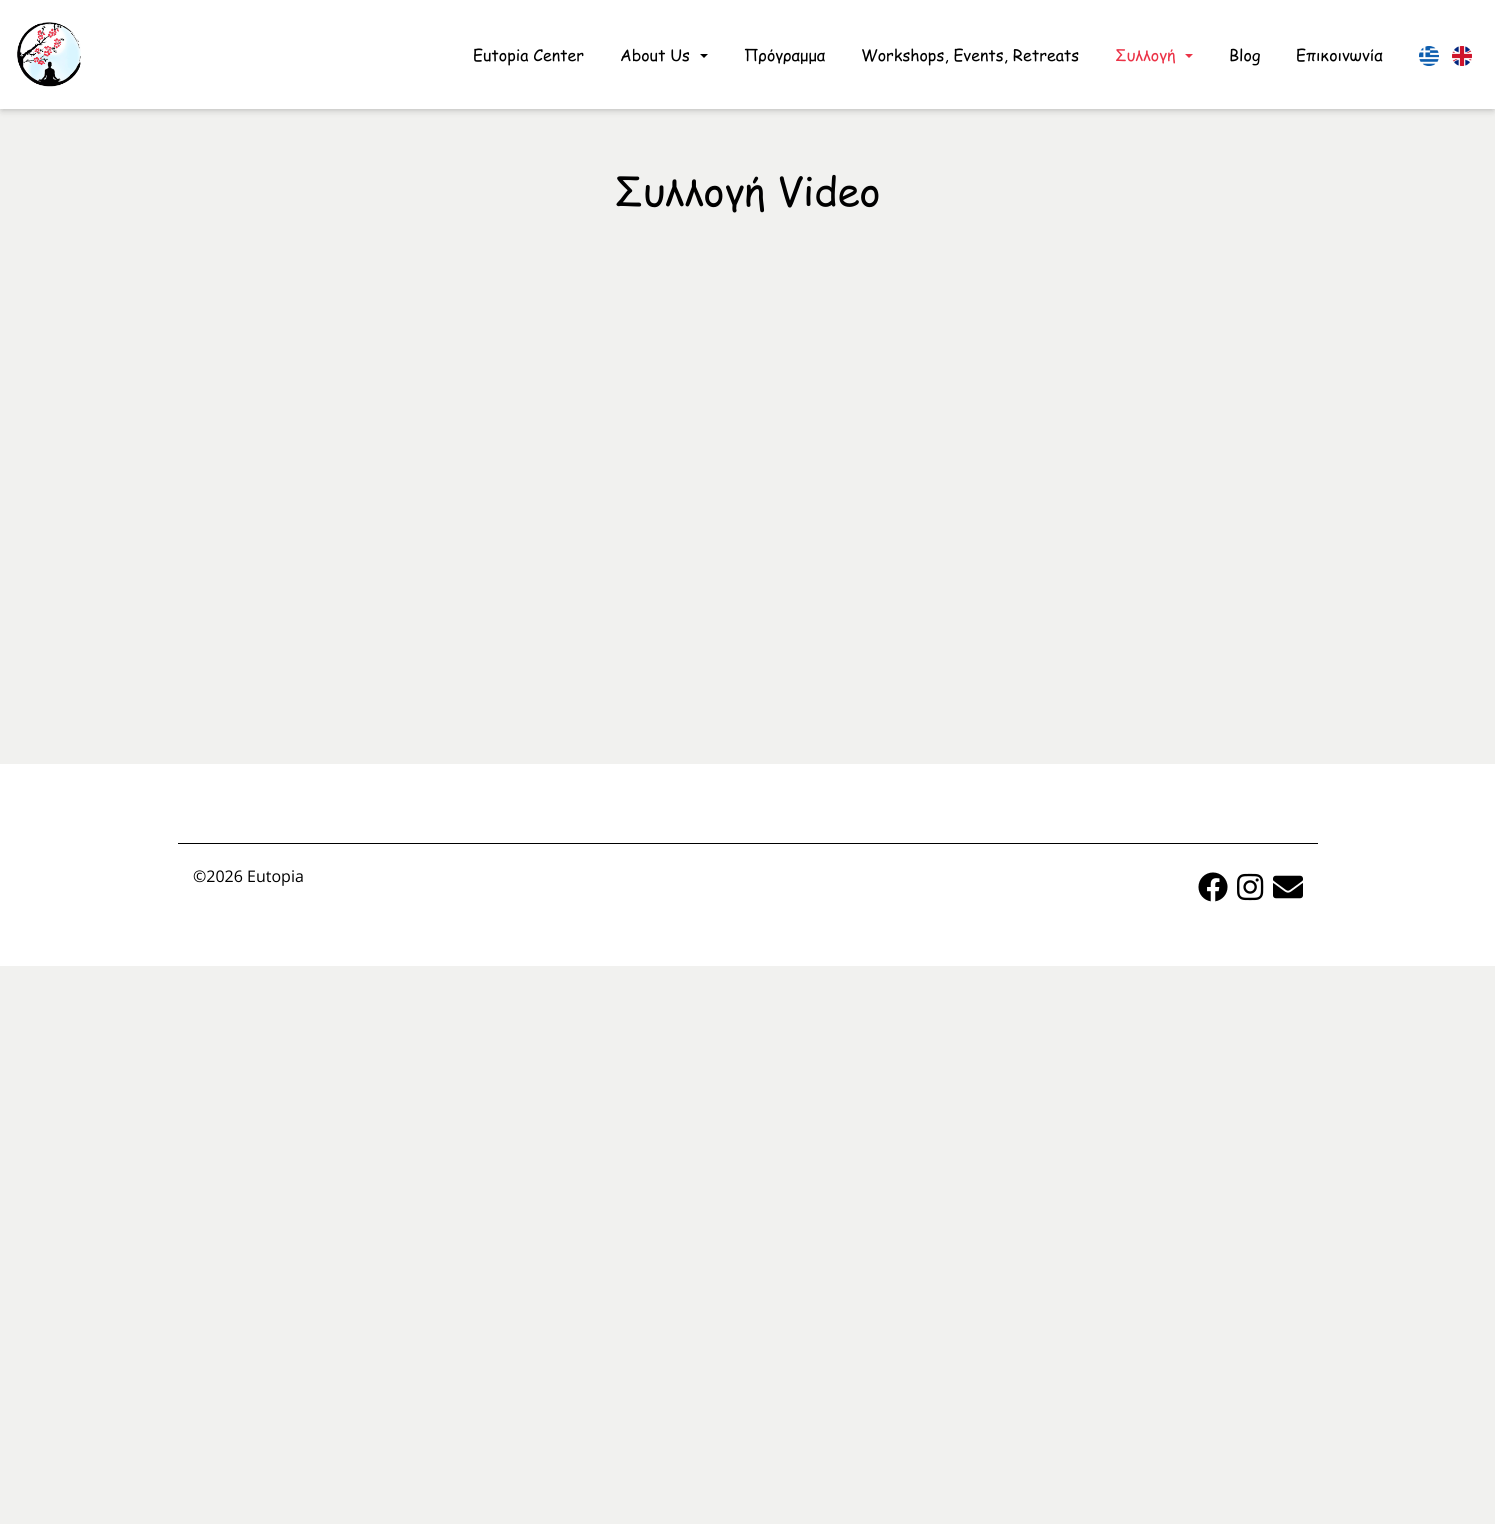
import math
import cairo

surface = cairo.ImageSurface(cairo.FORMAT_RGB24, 1495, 1524)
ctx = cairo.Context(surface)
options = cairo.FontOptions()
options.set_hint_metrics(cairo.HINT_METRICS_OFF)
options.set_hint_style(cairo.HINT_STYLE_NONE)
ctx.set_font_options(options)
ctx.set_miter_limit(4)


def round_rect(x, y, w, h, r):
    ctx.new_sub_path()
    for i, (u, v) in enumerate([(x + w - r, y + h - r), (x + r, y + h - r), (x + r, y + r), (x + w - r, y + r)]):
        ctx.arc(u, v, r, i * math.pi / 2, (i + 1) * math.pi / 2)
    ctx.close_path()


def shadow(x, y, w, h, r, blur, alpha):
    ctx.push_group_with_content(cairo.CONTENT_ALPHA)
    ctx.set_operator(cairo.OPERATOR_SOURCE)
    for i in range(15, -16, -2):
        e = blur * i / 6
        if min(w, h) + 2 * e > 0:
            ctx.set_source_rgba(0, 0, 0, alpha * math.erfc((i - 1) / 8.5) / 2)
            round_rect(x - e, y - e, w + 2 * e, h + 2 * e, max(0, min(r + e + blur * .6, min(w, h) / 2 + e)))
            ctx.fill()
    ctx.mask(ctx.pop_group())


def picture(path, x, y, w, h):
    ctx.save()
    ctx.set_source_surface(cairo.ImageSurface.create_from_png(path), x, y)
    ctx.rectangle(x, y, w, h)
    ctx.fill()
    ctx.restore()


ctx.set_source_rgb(0.945, 0.945, 0.937)
ctx.paint()
ctx.set_source_rgb(0, 0, 0)
shadow(2, 4, 1491, 105, 0, 4, 0.3)
ctx.set_source_rgb(1, 1, 1)
ctx.rectangle(0, 0, 1495, 109)
ctx.fill()
picture("img1.png", 17, 22, 64, 65)
ctx.select_font_face("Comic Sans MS")
ctx.set_font_size(16)
ctx.set_source_rgb(0, 0, 0)
ctx.move_to(473, 61)
ctx.show_text("Eutopia Center")
ctx.move_to(620, 61)
ctx.show_text("About Us")
ctx.new_path()
ctx.move_to(700, 54)
ctx.line_to(708, 54)
ctx.line_to(704, 58)
ctx.close_path()
ctx.fill()
ctx.move_to(744, 61)
ctx.show_text("Πρόγραμμα")
ctx.move_to(861, 61)
ctx.show_text("Workshops, Events, Retreats")
ctx.set_source_rgb(0.918, 0.2, 0.278)
ctx.move_to(1115, 61)
ctx.show_text("Συλλογή")
ctx.new_path()
ctx.move_to(1185, 54)
ctx.line_to(1193, 54)
ctx.line_to(1189, 58)
ctx.close_path()
ctx.fill()
ctx.set_source_rgb(0, 0, 0)
ctx.move_to(1229, 61)
ctx.show_text("Blog")
ctx.move_to(1296, 61)
ctx.show_text("Επικοινωνία")
picture("img2.png", 1419, 46, 20, 20)
picture("img3.png", 1452, 46, 20, 20)
ctx.set_font_size(40)
ctx.move_to(614, 206)
ctx.show_text("Συλλογή Video")
ctx.set_source_rgb(1, 1, 1)
ctx.rectangle(0, 764, 1495, 202)
ctx.fill()
ctx.set_source_rgb(0, 0, 0)
ctx.rectangle(178, 843, 1140, 1)
ctx.fill()
ctx.select_font_face("Open Sans")
ctx.set_font_size(16)
ctx.move_to(193, 882)
ctx.show_text("©2026 Eutopia")
picture("img4.png", 1198, 872, 30, 30)
picture("img5.png", 1237, 873, 27, 28)
picture("img6.png", 1273, 875, 30, 24)
surface.write_to_png("page.png")
